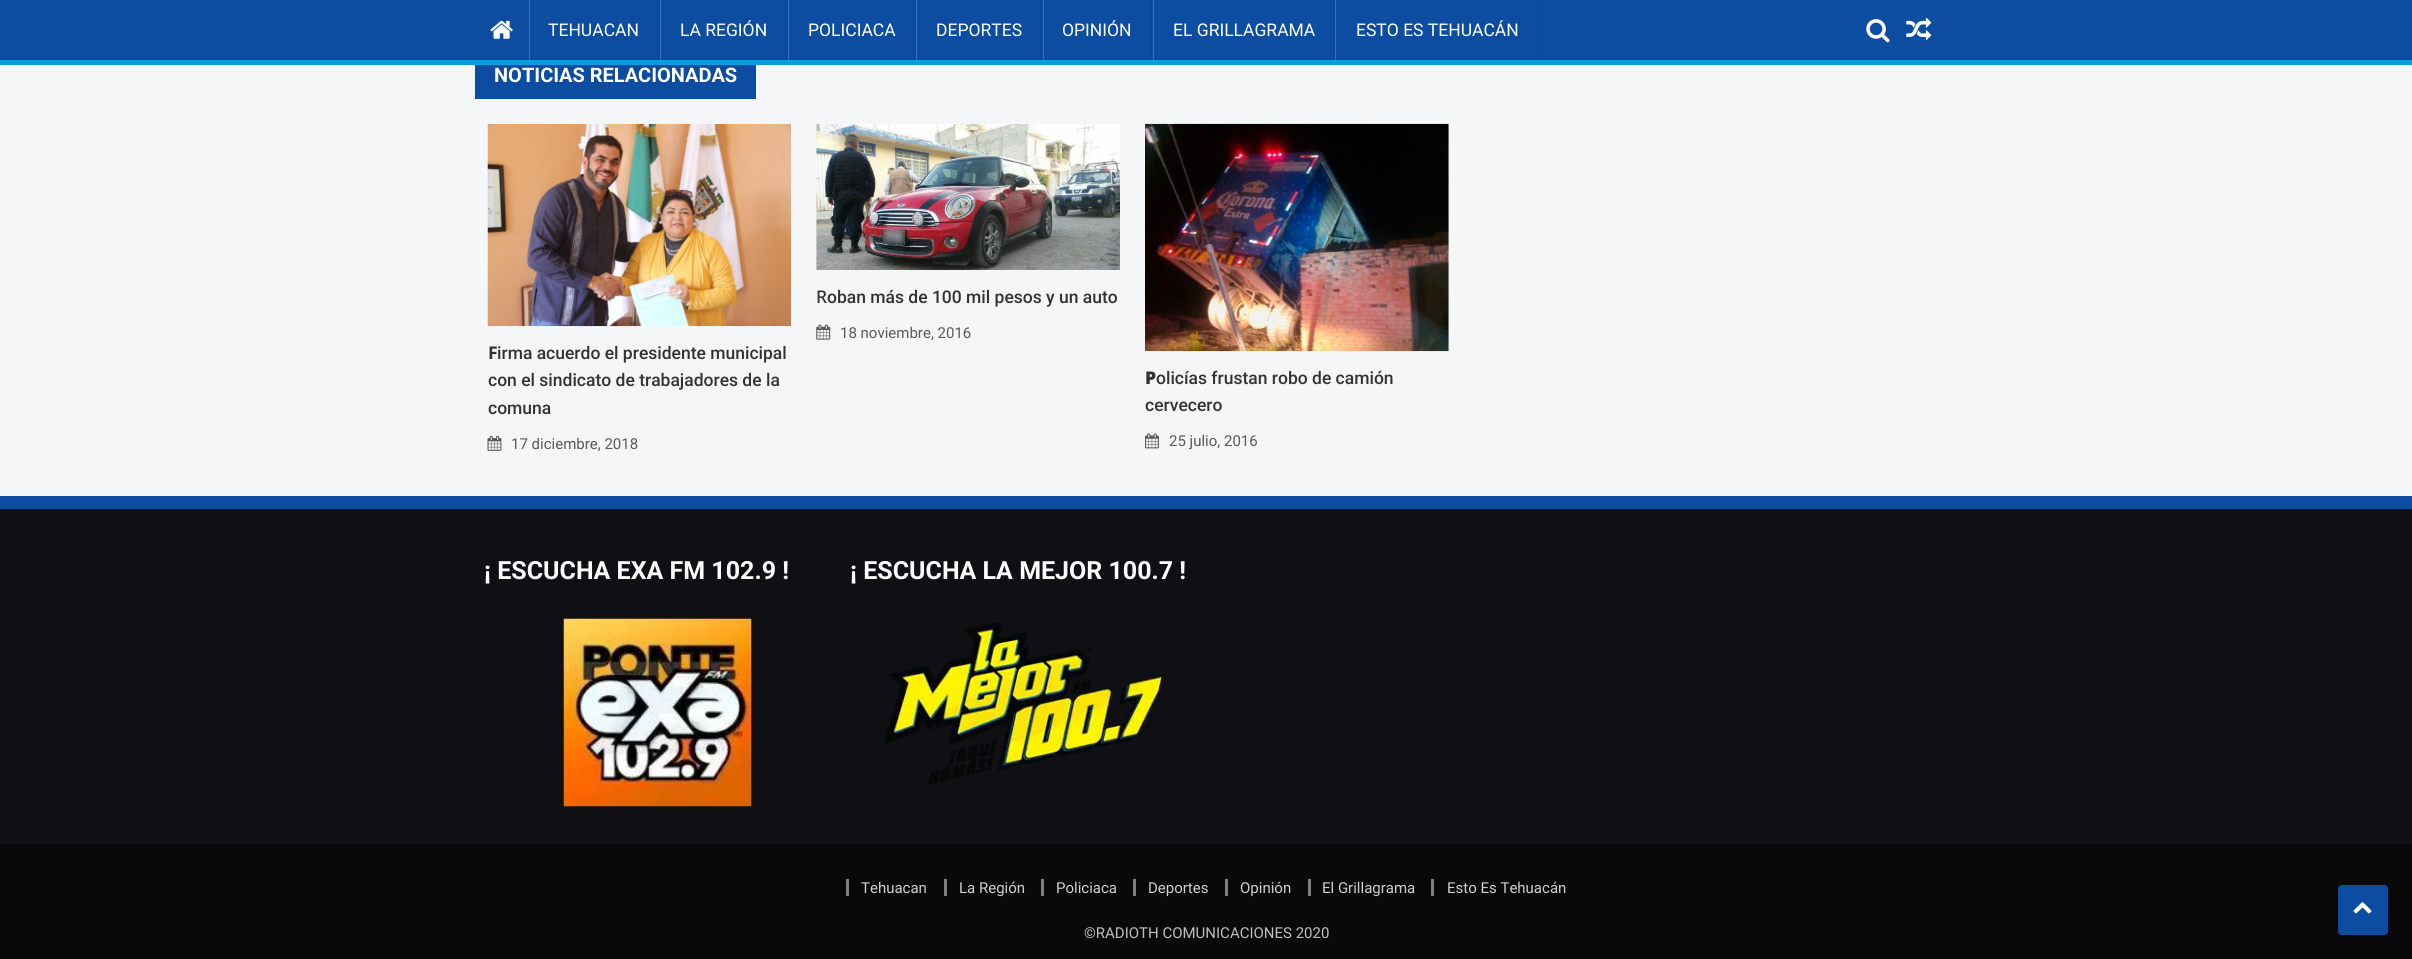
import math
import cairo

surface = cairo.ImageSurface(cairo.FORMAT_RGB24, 2412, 959)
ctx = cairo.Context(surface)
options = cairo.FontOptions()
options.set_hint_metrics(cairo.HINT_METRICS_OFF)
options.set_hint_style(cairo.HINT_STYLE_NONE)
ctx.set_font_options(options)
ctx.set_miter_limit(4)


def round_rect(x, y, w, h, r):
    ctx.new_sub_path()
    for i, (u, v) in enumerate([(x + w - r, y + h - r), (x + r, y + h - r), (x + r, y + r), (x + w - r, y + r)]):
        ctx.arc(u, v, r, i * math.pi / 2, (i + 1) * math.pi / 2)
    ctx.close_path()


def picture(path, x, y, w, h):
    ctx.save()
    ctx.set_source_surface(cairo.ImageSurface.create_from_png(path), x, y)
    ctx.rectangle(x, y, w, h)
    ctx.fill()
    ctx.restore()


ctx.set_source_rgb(0.957, 0.961, 0.965)
ctx.paint()
ctx.set_source_rgb(0.047, 0.302, 0.635)
ctx.rectangle(0, 0, 2412, 60)
ctx.fill()
ctx.set_source_rgb(0.055, 0.612, 0.867)
ctx.rectangle(0, 60, 2412, 5)
ctx.fill()
picture("img1.png", 490, 20, 23, 19)
ctx.set_source_rgb(0.043, 0.278, 0.584)
ctx.rectangle(658, 0, 1, 60)
ctx.fill()
ctx.set_source_rgb(0.239, 0.443, 0.71)
ctx.rectangle(529, 0, 1, 60)
ctx.fill()
ctx.select_font_face("Roboto")
ctx.set_font_size(17.5)
ctx.set_source_rgb(1, 1, 1)
ctx.move_to(548, 36)
ctx.show_text("TEHUACAN")
ctx.set_source_rgb(0.043, 0.278, 0.584)
ctx.rectangle(786, 0, 1, 60)
ctx.fill()
ctx.set_source_rgb(0.239, 0.443, 0.71)
ctx.rectangle(660, 0, 1, 60)
ctx.fill()
ctx.set_source_rgb(1, 1, 1)
ctx.move_to(680, 36)
ctx.show_text("LA REGIÓN")
ctx.set_source_rgb(0.043, 0.278, 0.584)
ctx.rectangle(914, 0, 1, 60)
ctx.fill()
ctx.set_source_rgb(0.239, 0.443, 0.71)
ctx.rectangle(788, 0, 1, 60)
ctx.fill()
ctx.set_source_rgb(1, 1, 1)
ctx.move_to(808, 36)
ctx.show_text("POLICIACA")
ctx.set_source_rgb(0.043, 0.278, 0.584)
ctx.rectangle(1040, 0, 1, 60)
ctx.fill()
ctx.set_source_rgb(0.239, 0.443, 0.71)
ctx.rectangle(916, 0, 1, 60)
ctx.fill()
ctx.set_source_rgb(1, 1, 1)
ctx.move_to(936, 36)
ctx.show_text("DEPORTES")
ctx.set_source_rgb(0.043, 0.278, 0.584)
ctx.rectangle(1151, 0, 1, 60)
ctx.fill()
ctx.set_source_rgb(0.239, 0.443, 0.71)
ctx.rectangle(1043, 0, 1, 60)
ctx.fill()
ctx.set_source_rgb(1, 1, 1)
ctx.move_to(1062, 36)
ctx.show_text("OPINIÓN")
ctx.set_source_rgb(0.043, 0.278, 0.584)
ctx.rectangle(1334, 0, 1, 60)
ctx.fill()
ctx.set_source_rgb(0.239, 0.443, 0.71)
ctx.rectangle(1153, 0, 1, 60)
ctx.fill()
ctx.set_source_rgb(1, 1, 1)
ctx.move_to(1173, 36)
ctx.show_text("EL GRILLAGRAMA")
ctx.set_source_rgb(0.043, 0.278, 0.584)
ctx.rectangle(1538, 0, 1, 60)
ctx.fill()
ctx.set_source_rgb(0.239, 0.443, 0.71)
ctx.rectangle(1335, 0, 1, 60)
ctx.fill()
ctx.set_source_rgb(1, 1, 1)
ctx.move_to(1356, 36)
ctx.show_text("ESTO ES TEHUACÁN")
picture("img2.png", 1866, 19, 24, 24)
picture("img3.png", 1906, 17, 26, 23)
ctx.set_source_rgb(0.047, 0.302, 0.635)
ctx.rectangle(475, 65, 281, 34)
ctx.fill()
ctx.select_font_face("Roboto", cairo.FONT_SLANT_NORMAL, cairo.FONT_WEIGHT_BOLD)
ctx.set_font_size(20)
ctx.set_source_rgb(1, 1, 1)
ctx.move_to(494, 82)
ctx.show_text("NOTICIAS RELACIONADAS")
picture("img4.png", 816, 123, 304, 147)
ctx.select_font_face("Noto Sans Medium")
ctx.set_font_size(17.5)
ctx.set_source_rgb(0.2, 0.2, 0.2)
ctx.move_to(816, 303)
ctx.show_text("R")
ctx.select_font_face("Roboto Medium")
ctx.move_to(827, 303)
ctx.show_text("oban más de 100 mil pesos y un auto")
picture("img5.png", 816, 324, 15, 16)
ctx.select_font_face("Roboto")
ctx.set_font_size(15)
ctx.set_source_rgb(0.353, 0.353, 0.353)
ctx.move_to(840, 338)
ctx.show_text("18 noviembre, 2016")
picture("img6.png", 487, 123, 305, 204)
ctx.select_font_face("Noto Sans", cairo.FONT_SLANT_NORMAL, cairo.FONT_WEIGHT_BOLD)
ctx.set_font_size(17.5)
ctx.set_source_rgb(0.2, 0.2, 0.2)
ctx.move_to(488, 359)
ctx.show_text("F")
ctx.select_font_face("Roboto Medium")
ctx.move_to(497, 359)
ctx.show_text("irma acuerdo el presidente municipal")
ctx.move_to(488, 386)
ctx.show_text("con el sindicato de trabajadores de la")
ctx.move_to(488, 414)
ctx.show_text("comuna")
picture("img7.png", 487, 435, 15, 16)
ctx.select_font_face("Roboto")
ctx.set_font_size(15)
ctx.set_source_rgb(0.353, 0.353, 0.353)
ctx.move_to(511, 449)
ctx.show_text("17 diciembre, 2018")
picture("img8.png", 1145, 123, 304, 229)
ctx.select_font_face("Noto Sans Black")
ctx.set_font_size(17.5)
ctx.set_source_rgb(0.2, 0.2, 0.2)
ctx.move_to(1145, 384)
ctx.show_text("P")
ctx.select_font_face("Roboto Medium")
ctx.move_to(1156, 384)
ctx.show_text("olicías frustan robo de camión")
ctx.move_to(1145, 411)
ctx.show_text("cervecero")
picture("img9.png", 1145, 433, 14, 16)
ctx.select_font_face("Roboto")
ctx.set_font_size(15)
ctx.set_source_rgb(0.353, 0.353, 0.353)
ctx.move_to(1169, 446)
ctx.show_text("25 julio, 2016")
ctx.set_source_rgb(0.063, 0.059, 0.082)
ctx.rectangle(0, 509, 2412, 335)
ctx.fill()
ctx.set_source_rgb(0.047, 0.302, 0.635)
ctx.rectangle(0, 496, 2412, 13)
ctx.fill()
ctx.select_font_face("Roboto", cairo.FONT_SLANT_NORMAL, cairo.FONT_WEIGHT_BOLD)
ctx.set_font_size(25)
ctx.set_source_rgb(1, 1, 1)
ctx.move_to(484, 579)
ctx.show_text("¡ ESCUCHA EXA FM 102.9 !")
picture("img10.png", 563, 618, 189, 189)
ctx.move_to(850, 579)
ctx.show_text("¡ ESCUCHA LA MEJOR 100.7 !")
picture("img11.png", 884, 622, 279, 163)
ctx.set_source_rgb(0.039, 0.039, 0.047)
ctx.rectangle(0, 844, 2412, 115)
ctx.fill()
ctx.select_font_face("Roboto")
ctx.set_font_size(15)
ctx.set_source_rgb(0.812, 0.812, 0.812)
ctx.move_to(861, 893)
ctx.show_text("Tehuacan")
ctx.set_source_rgb(0.498, 0.498, 0.498)
ctx.rectangle(846, 879, 3, 17)
ctx.fill()
ctx.set_source_rgb(0.812, 0.812, 0.812)
ctx.move_to(959, 893)
ctx.show_text("La Región")
ctx.set_source_rgb(0.498, 0.498, 0.498)
ctx.rectangle(944, 879, 3, 17)
ctx.fill()
ctx.set_source_rgb(0.812, 0.812, 0.812)
ctx.move_to(1056, 893)
ctx.show_text("Policiaca")
ctx.set_source_rgb(0.498, 0.498, 0.498)
ctx.rectangle(1041, 879, 3, 17)
ctx.fill()
ctx.set_source_rgb(0.812, 0.812, 0.812)
ctx.move_to(1148, 893)
ctx.show_text("Deportes")
ctx.set_source_rgb(0.498, 0.498, 0.498)
ctx.rectangle(1133, 879, 3, 17)
ctx.fill()
ctx.set_source_rgb(0.812, 0.812, 0.812)
ctx.move_to(1240, 893)
ctx.show_text("Opinión")
ctx.set_source_rgb(0.498, 0.498, 0.498)
ctx.rectangle(1225, 879, 3, 17)
ctx.fill()
ctx.set_source_rgb(0.812, 0.812, 0.812)
ctx.move_to(1322, 893)
ctx.show_text("El Grillagrama")
ctx.set_source_rgb(0.498, 0.498, 0.498)
ctx.rectangle(1308, 879, 3, 17)
ctx.fill()
ctx.set_source_rgb(0.812, 0.812, 0.812)
ctx.move_to(1447, 893)
ctx.show_text("Esto Es Tehuacán")
ctx.set_source_rgb(0.498, 0.498, 0.498)
ctx.rectangle(1431, 879, 3, 17)
ctx.fill()
ctx.set_source_rgb(0.749, 0.749, 0.749)
ctx.move_to(1084, 938)
ctx.show_text("©RADIOTH COMUNICACIONES 2020")
ctx.set_source_rgb(0.047, 0.302, 0.635)
round_rect(2338, 885, 50, 50, 4)
ctx.fill()
picture("img12.png", 2353, 902, 19, 12)
surface.write_to_png("page.png")
